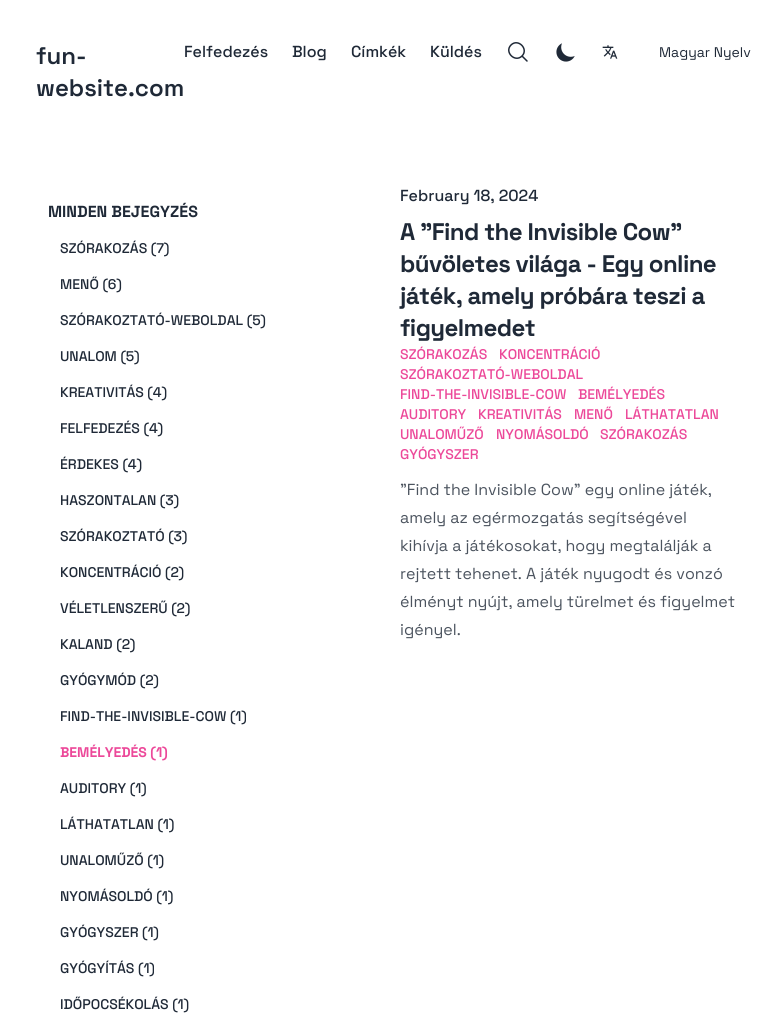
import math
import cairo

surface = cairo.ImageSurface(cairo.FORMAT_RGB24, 760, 1025)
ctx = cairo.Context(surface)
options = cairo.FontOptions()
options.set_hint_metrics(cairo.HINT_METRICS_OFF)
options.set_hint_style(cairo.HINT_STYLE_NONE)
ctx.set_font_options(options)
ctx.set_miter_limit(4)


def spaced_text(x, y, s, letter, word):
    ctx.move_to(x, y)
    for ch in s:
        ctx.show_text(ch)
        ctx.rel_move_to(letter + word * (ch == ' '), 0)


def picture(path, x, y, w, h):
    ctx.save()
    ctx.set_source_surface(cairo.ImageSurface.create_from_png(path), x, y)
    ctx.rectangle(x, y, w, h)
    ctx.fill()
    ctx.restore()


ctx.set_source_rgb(1, 1, 1)
ctx.paint()
ctx.select_font_face("Space Grotesk SemiBold")
ctx.set_font_size(24)
ctx.set_source_rgb(0.122, 0.161, 0.216)
ctx.move_to(36, 64)
ctx.show_text("fun-")
ctx.move_to(36, 96)
ctx.show_text("website.com")
ctx.select_font_face("Space Grotesk Medium")
ctx.set_font_size(16)
ctx.move_to(184, 57)
ctx.show_text("Felfedezés")
ctx.move_to(292, 57)
ctx.show_text("Blog")
ctx.move_to(351, 57)
ctx.show_text("Címkék")
ctx.move_to(430, 57)
ctx.show_text("Küldés")
ctx.new_path()
ctx.move_to(527, 61)
ctx.line_to(522, 56)
ctx.move_to(522, 56)
ctx.curve_to(529, 49, 518, 38, 511, 45)
ctx.curve_to(504, 52, 515, 63, 522, 56)
ctx.close_path()
ctx.set_line_width(1.5)
ctx.set_line_cap(cairo.LINE_CAP_ROUND)
ctx.set_line_join(cairo.LINE_JOIN_ROUND)
ctx.stroke()
picture("img1.png", 556, 43, 19, 19)
picture("img2.png", 602, 45, 16, 14)
ctx.select_font_face("Space Grotesk")
ctx.set_font_size(14)
ctx.move_to(659, 57)
ctx.show_text("Magyar Nyelv")
ctx.select_font_face("Space Grotesk", cairo.FONT_SLANT_NORMAL, cairo.FONT_WEIGHT_BOLD)
ctx.set_font_size(16)
ctx.move_to(48, 217)
ctx.show_text("MINDEN BEJEGYZÉS")
ctx.select_font_face("Space Grotesk Medium")
ctx.set_font_size(14)
ctx.move_to(60, 253)
ctx.show_text("SZÓRAKOZÁS (7)")
ctx.move_to(60, 289)
ctx.show_text("MENŐ (6)")
ctx.move_to(60, 325)
ctx.show_text("SZÓRAKOZTATÓ-WEBOLDAL (5)")
ctx.move_to(60, 361)
ctx.show_text("UNALOM (5)")
ctx.move_to(60, 397)
ctx.show_text("KREATIVITÁS (4)")
ctx.move_to(60, 433)
ctx.show_text("FELFEDEZÉS (4)")
ctx.move_to(60, 469)
ctx.show_text("ÉRDEKES (4)")
ctx.move_to(60, 505)
ctx.show_text("HASZONTALAN (3)")
ctx.move_to(60, 541)
ctx.show_text("SZÓRAKOZTATÓ (3)")
ctx.move_to(60, 577)
ctx.show_text("KONCENTRÁCIÓ (2)")
ctx.move_to(60, 613)
ctx.show_text("VÉLETLENSZERŰ (2)")
ctx.move_to(60, 649)
ctx.show_text("KALAND (2)")
ctx.move_to(60, 685)
ctx.show_text("GYÓGYMÓD (2)")
ctx.move_to(60, 721)
ctx.show_text("FIND-THE-INVISIBLE-COW (1)")
ctx.select_font_face("Space Grotesk", cairo.FONT_SLANT_NORMAL, cairo.FONT_WEIGHT_BOLD)
ctx.set_source_rgb(0.925, 0.282, 0.6)
ctx.move_to(60, 757)
ctx.show_text("BEMÉLYEDÉS (1)")
ctx.select_font_face("Space Grotesk Medium")
ctx.set_source_rgb(0.122, 0.161, 0.216)
ctx.move_to(60, 793)
ctx.show_text("AUDITORY (1)")
ctx.move_to(60, 829)
ctx.show_text("LÁTHATATLAN (1)")
ctx.move_to(60, 865)
ctx.show_text("UNALOMŰZŐ (1)")
ctx.move_to(60, 901)
ctx.show_text("NYOMÁSOLDÓ (1)")
ctx.move_to(60, 937)
ctx.show_text("GYÓGYSZER (1)")
ctx.move_to(60, 973)
ctx.show_text("GYÓGYÍTÁS (1)")
ctx.move_to(60, 1009)
ctx.show_text("IDŐPOCSÉKOLÁS (1)")
ctx.set_font_size(16)
ctx.move_to(400, 201)
ctx.show_text("February 18, 2024")
ctx.select_font_face("Space Grotesk", cairo.FONT_SLANT_NORMAL, cairo.FONT_WEIGHT_BOLD)
ctx.set_font_size(24)
spaced_text(400, 240, "A \"Find the Invisible Cow\"", -0.6, 0)
spaced_text(400, 272, "bűvöletes világa - Egy online", -0.6, 0)
spaced_text(400, 304, "játék, amely próbára teszi a", -0.6, 0)
spaced_text(400, 336, "figyelmedet", -0.6, 0)
ctx.select_font_face("Space Grotesk Medium")
ctx.set_font_size(14)
ctx.set_source_rgb(0.925, 0.282, 0.6)
ctx.move_to(400, 359)
ctx.show_text("SZÓRAKOZÁS")
ctx.move_to(499, 359)
ctx.show_text("KONCENTRÁCIÓ")
ctx.move_to(400, 379)
ctx.show_text("SZÓRAKOZTATÓ-WEBOLDAL")
ctx.move_to(400, 399)
ctx.show_text("FIND-THE-INVISIBLE-COW")
ctx.move_to(578, 399)
ctx.show_text("BEMÉLYEDÉS")
ctx.move_to(400, 419)
ctx.show_text("AUDITORY")
ctx.move_to(478, 419)
ctx.show_text("KREATIVITÁS")
ctx.move_to(574, 419)
ctx.show_text("MENŐ")
ctx.move_to(625, 419)
ctx.show_text("LÁTHATATLAN")
ctx.move_to(400, 439)
ctx.show_text("UNALOMŰZŐ")
ctx.move_to(496, 439)
ctx.show_text("NYOMÁSOLDÓ")
ctx.move_to(600, 439)
ctx.show_text("SZÓRAKOZÁS")
ctx.move_to(400, 459)
ctx.show_text("GYÓGYSZER")
ctx.select_font_face("Space Grotesk")
ctx.set_font_size(16)
ctx.set_source_rgb(0.298, 0.329, 0.373)
ctx.move_to(400, 495)
ctx.show_text("\"Find the Invisible Cow\" egy online játék,")
ctx.move_to(400, 523)
ctx.show_text("amely az egérmozgatás segítségével")
ctx.move_to(400, 551)
ctx.show_text("kihívja a játékosokat, hogy megtalálják a")
ctx.move_to(400, 579)
ctx.show_text("rejtett tehenet. A játék nyugodt és vonzó")
ctx.move_to(400, 607)
ctx.show_text("élményt nyújt, amely türelmet és figyelmet")
ctx.move_to(400, 635)
ctx.show_text("igényel.")
surface.write_to_png("page.png")
